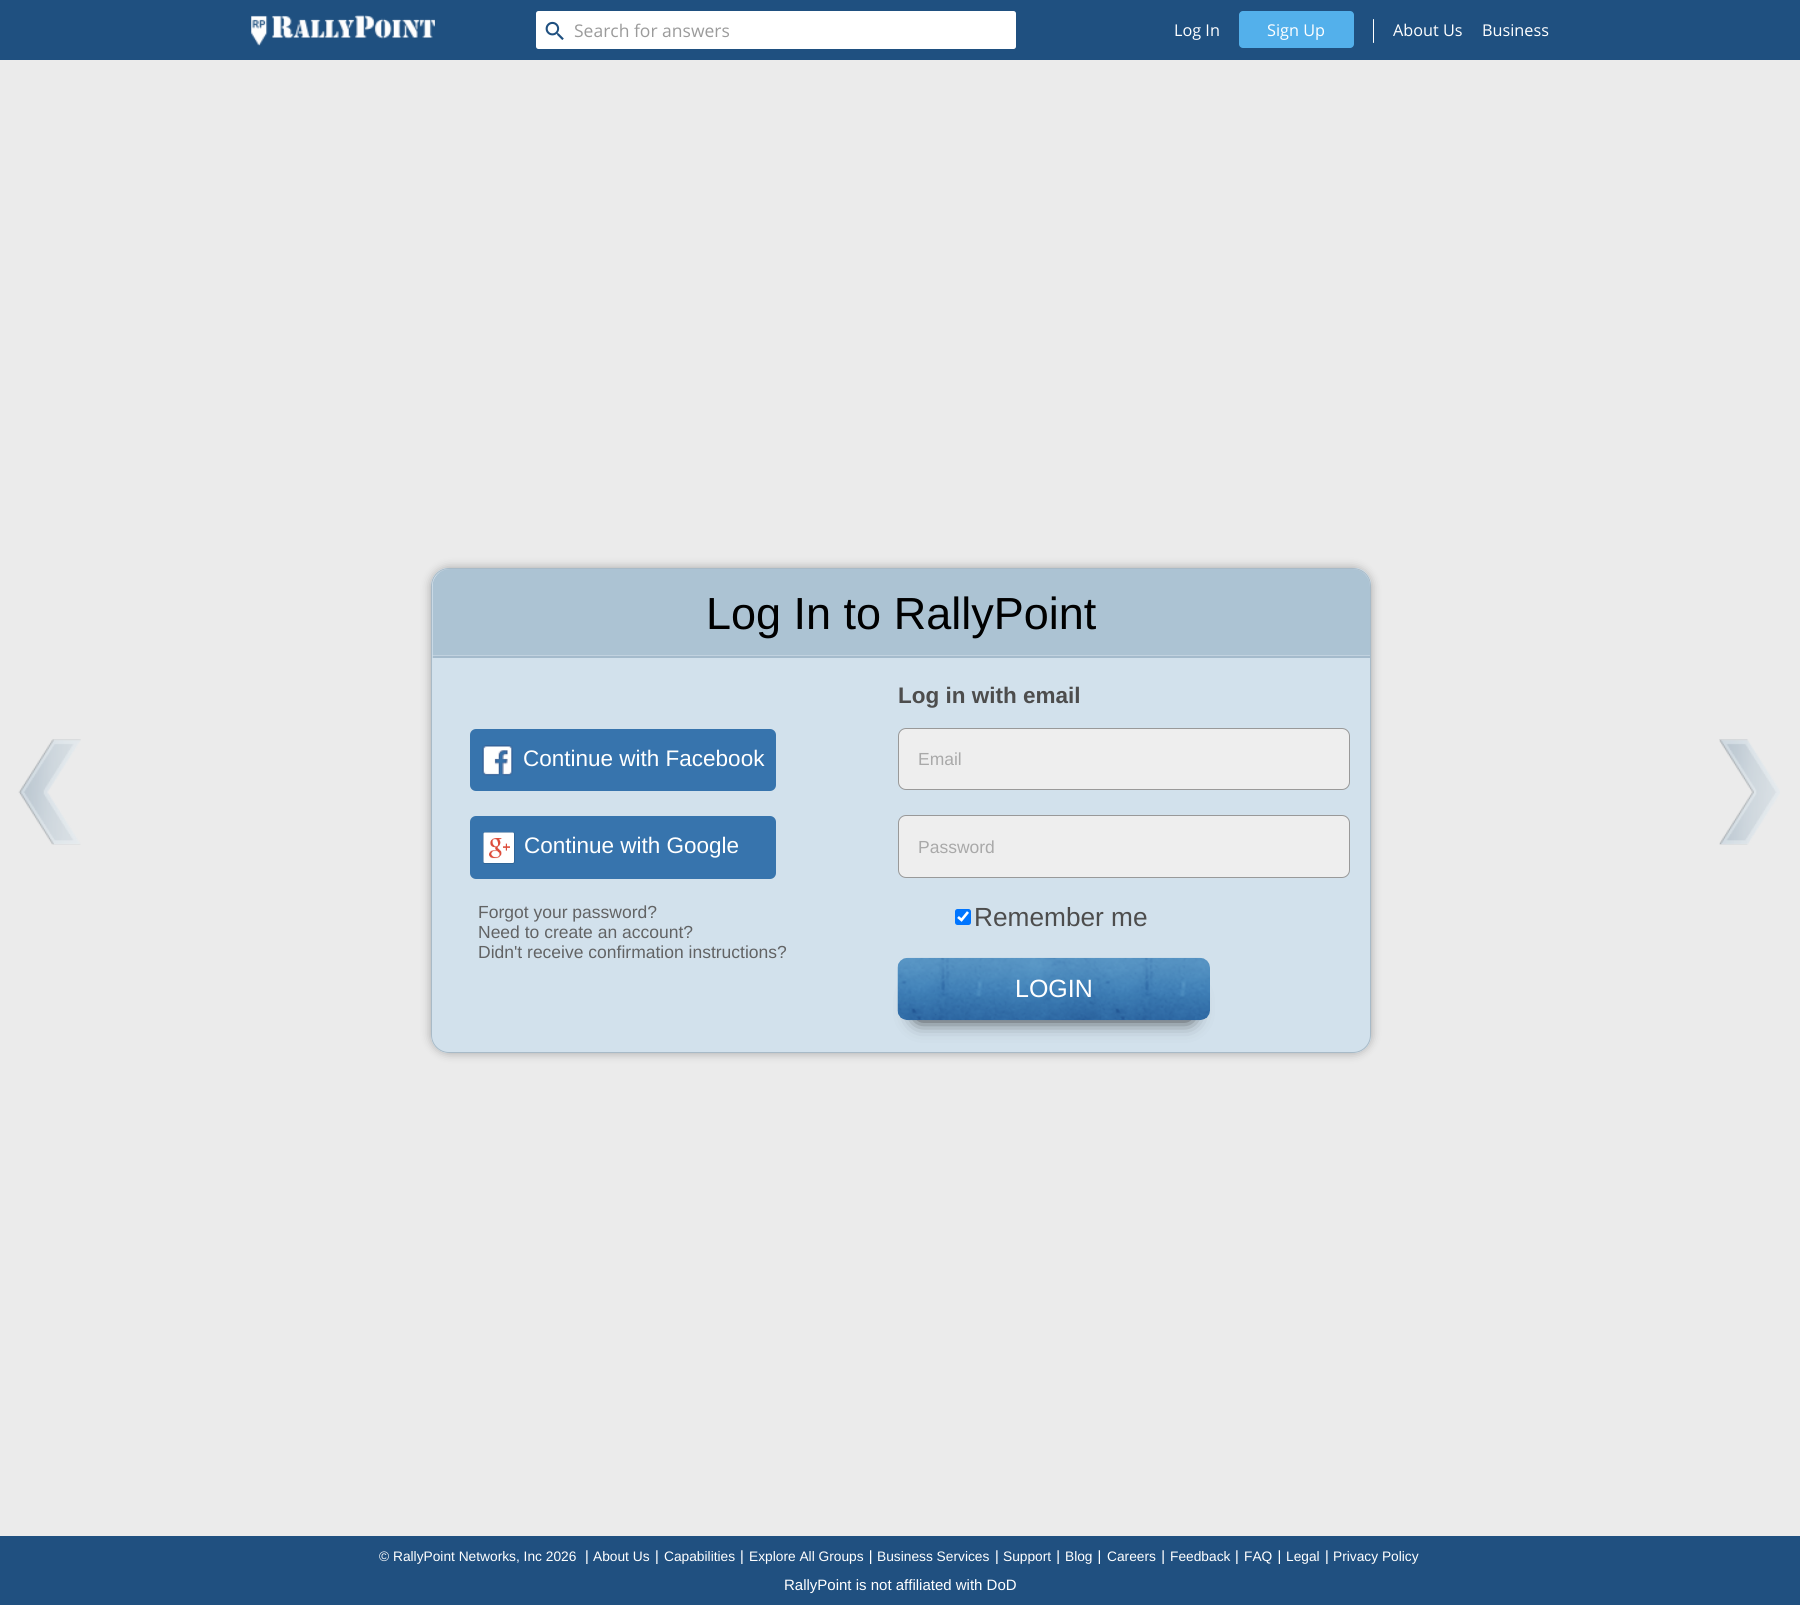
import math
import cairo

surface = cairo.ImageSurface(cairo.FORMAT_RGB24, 1800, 1605)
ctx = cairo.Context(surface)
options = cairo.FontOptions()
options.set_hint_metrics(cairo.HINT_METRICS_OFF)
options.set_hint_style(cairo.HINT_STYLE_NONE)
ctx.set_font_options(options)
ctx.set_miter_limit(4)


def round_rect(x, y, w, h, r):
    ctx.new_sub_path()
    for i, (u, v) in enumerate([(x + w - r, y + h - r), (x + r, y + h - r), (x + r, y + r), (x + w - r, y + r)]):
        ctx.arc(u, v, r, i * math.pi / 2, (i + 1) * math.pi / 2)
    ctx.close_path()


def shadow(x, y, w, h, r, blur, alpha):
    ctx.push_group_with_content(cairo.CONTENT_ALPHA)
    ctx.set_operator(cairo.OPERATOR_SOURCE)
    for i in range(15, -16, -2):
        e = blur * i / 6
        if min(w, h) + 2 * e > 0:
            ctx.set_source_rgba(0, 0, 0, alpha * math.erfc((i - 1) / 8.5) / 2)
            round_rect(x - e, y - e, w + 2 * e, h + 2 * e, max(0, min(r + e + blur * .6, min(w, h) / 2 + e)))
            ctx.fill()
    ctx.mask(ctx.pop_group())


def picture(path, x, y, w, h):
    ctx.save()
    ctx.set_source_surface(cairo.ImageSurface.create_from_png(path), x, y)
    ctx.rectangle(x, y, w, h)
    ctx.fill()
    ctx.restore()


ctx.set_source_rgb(0.918, 0.918, 0.918)
ctx.paint()
ctx.set_source_rgb(0.122, 0.314, 0.502)
ctx.rectangle(0, 0, 1800, 60)
ctx.fill()
picture("img1.png", 251, 15, 184, 31)
ctx.set_source_rgb(1, 1, 1)
round_rect(536, 11, 480, 38, 2.5)
ctx.fill()
picture("img2.png", 545, 21, 19, 19)
ctx.select_font_face("Open Sans")
ctx.set_font_size(17.5)
ctx.set_source_rgb(0.608, 0.608, 0.608)
ctx.move_to(574, 37)
ctx.show_text("Search for answers")
ctx.set_font_size(16.25)
ctx.set_source_rgb(1, 1, 1)
ctx.move_to(1174, 36)
ctx.show_text("Log In")
ctx.set_source_rgb(0.325, 0.69, 0.918)
round_rect(1239, 11, 115, 37, 4)
ctx.fill()
ctx.set_source_rgb(1, 1, 1)
ctx.move_to(1267, 36)
ctx.show_text("Sign Up")
round_rect(1373, 19, 1, 24, 0.5)
ctx.fill()
ctx.move_to(1393, 36)
ctx.show_text("About Us")
ctx.move_to(1482, 36)
ctx.show_text("Business")
picture("img3.png", 18, 739, 63, 106)
ctx.save()
ctx.set_fill_rule(cairo.FILL_RULE_EVEN_ODD)
ctx.new_path()
ctx.move_to(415, 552)
ctx.line_to(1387, 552)
ctx.line_to(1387, 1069)
ctx.line_to(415, 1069)
ctx.close_path()
ctx.move_to(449, 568)
ctx.line_to(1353, 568)
ctx.curve_to(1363, 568, 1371, 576, 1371, 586)
ctx.line_to(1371, 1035)
ctx.curve_to(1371, 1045, 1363, 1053, 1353, 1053)
ctx.line_to(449, 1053)
ctx.curve_to(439, 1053, 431, 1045, 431, 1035)
ctx.line_to(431, 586)
ctx.curve_to(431, 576, 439, 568, 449, 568)
ctx.close_path()
ctx.clip()
ctx.set_source_rgb(0, 0, 0)
shadow(431, 568, 940, 485, 18, 5, 0.3)
ctx.restore()
picture("img4.png", 431, 568, 940, 485)
round_rect(431.5, 568.5, 939, 484, 17.5)
ctx.set_source_rgb(0.659, 0.729, 0.78)
ctx.set_line_width(1)
ctx.stroke()
picture("img5.png", 432, 569, 938, 89)
ctx.select_font_face("Liberation Sans")
ctx.set_font_size(45)
ctx.set_source_rgb(0, 0, 0)
ctx.move_to(706, 629)
ctx.show_text("Log In to RallyPoint")
ctx.set_source_rgb(0.216, 0.455, 0.678)
round_rect(470, 729, 306, 62, 6)
ctx.fill()
picture("img6.png", 482, 745, 31, 31)
ctx.set_font_size(22.5)
ctx.set_source_rgb(1, 1, 1)
ctx.move_to(523, 766)
ctx.show_text("Continue with Facebook")
ctx.set_source_rgb(0.216, 0.455, 0.678)
round_rect(470, 816, 306, 63, 6)
ctx.fill()
picture("img7.png", 483, 832, 32, 32)
ctx.set_source_rgb(1, 1, 1)
ctx.move_to(524, 853)
ctx.show_text("Continue with Google")
ctx.set_font_size(17.5)
ctx.set_source_rgb(0.384, 0.388, 0.392)
ctx.move_to(478, 918)
ctx.show_text("Forgot your password?")
ctx.move_to(478, 938)
ctx.show_text("Need to create an account?")
ctx.move_to(478, 958)
ctx.show_text("Didn't receive confirmation instructions?")
ctx.select_font_face("Liberation Sans", cairo.FONT_SLANT_NORMAL, cairo.FONT_WEIGHT_BOLD)
ctx.set_font_size(22.5)
ctx.set_source_rgb(0.302, 0.302, 0.302)
ctx.move_to(898, 703)
ctx.show_text("Log in with email")
ctx.set_source_rgb(0.933, 0.933, 0.933)
round_rect(898.5, 728.5, 451, 61, 7.5)
ctx.fill_preserve()
ctx.set_source_rgb(0.6, 0.6, 0.6)
ctx.stroke()
ctx.select_font_face("Liberation Sans")
ctx.set_font_size(17.5)
ctx.set_source_rgb(0.663, 0.663, 0.663)
ctx.move_to(918, 765)
ctx.show_text("Email")
ctx.set_source_rgb(0.933, 0.933, 0.933)
round_rect(898.5, 815.5, 451, 62, 7.5)
ctx.fill_preserve()
ctx.set_source_rgb(0.6, 0.6, 0.6)
ctx.stroke()
ctx.set_source_rgb(0.663, 0.663, 0.663)
ctx.move_to(918, 853)
ctx.show_text("Password")
ctx.set_source_rgb(0, 0.459, 1)
round_rect(955, 909, 16, 16, 2.5)
ctx.fill()
ctx.new_path()
ctx.move_to(958, 917)
ctx.line_to(961.5, 920)
ctx.line_to(968, 912)
ctx.set_source_rgb(1, 1, 1)
ctx.set_line_width(2.6)
ctx.stroke()
ctx.set_font_size(26.25)
ctx.set_source_rgb(0.302, 0.302, 0.302)
ctx.move_to(974, 926)
ctx.show_text("Remember me")
ctx.set_source_rgb(0, 0, 0)
shadow(918, 995, 272, 23, 0, 10, 1)
picture("img8.png", 897, 957, 313, 64)
ctx.set_font_size(25)
ctx.set_source_rgb(1, 1, 1)
ctx.move_to(1015, 997)
ctx.show_text("LOGIN")
picture("img9.png", 1719, 739, 61, 106)
ctx.set_source_rgb(0.125, 0.314, 0.502)
ctx.rectangle(0, 1536, 1800, 69)
ctx.fill()
ctx.set_font_size(13.75)
ctx.set_source_rgb(1, 1, 1)
ctx.move_to(379, 1561)
ctx.show_text("© RallyPoint Networks, Inc 2026")
picture("img10.png", 586, 1550, 2, 14)
ctx.move_to(593, 1561)
ctx.show_text("About Us")
picture("img10.png", 656, 1550, 2, 14)
ctx.move_to(664, 1561)
ctx.show_text("Capabilities")
picture("img10.png", 741, 1550, 2, 14)
ctx.move_to(749, 1561)
ctx.show_text("Explore All Groups")
picture("img11.png", 870, 1550, 2, 14)
ctx.move_to(877, 1561)
ctx.show_text("Business Services")
picture("img10.png", 996, 1550, 2, 14)
ctx.move_to(1003, 1561)
ctx.show_text("Support")
picture("img12.png", 1057, 1550, 2, 14)
ctx.move_to(1065, 1561)
ctx.show_text("Blog")
picture("img13.png", 1098, 1550, 2, 14)
ctx.move_to(1107, 1561)
ctx.show_text("Careers")
picture("img12.png", 1162, 1550, 2, 14)
ctx.move_to(1170, 1561)
ctx.show_text("Feedback")
picture("img10.png", 1236, 1550, 2, 14)
ctx.move_to(1244, 1561)
ctx.show_text("FAQ")
picture("img13.png", 1278, 1550, 2, 14)
ctx.move_to(1286, 1561)
ctx.show_text("Legal")
picture("img10.png", 1326, 1550, 2, 14)
ctx.move_to(1333, 1561)
ctx.show_text("Privacy Policy")
ctx.set_font_size(15)
ctx.move_to(784, 1590)
ctx.show_text("RallyPoint is not affiliated with DoD")
surface.write_to_png("page.png")
